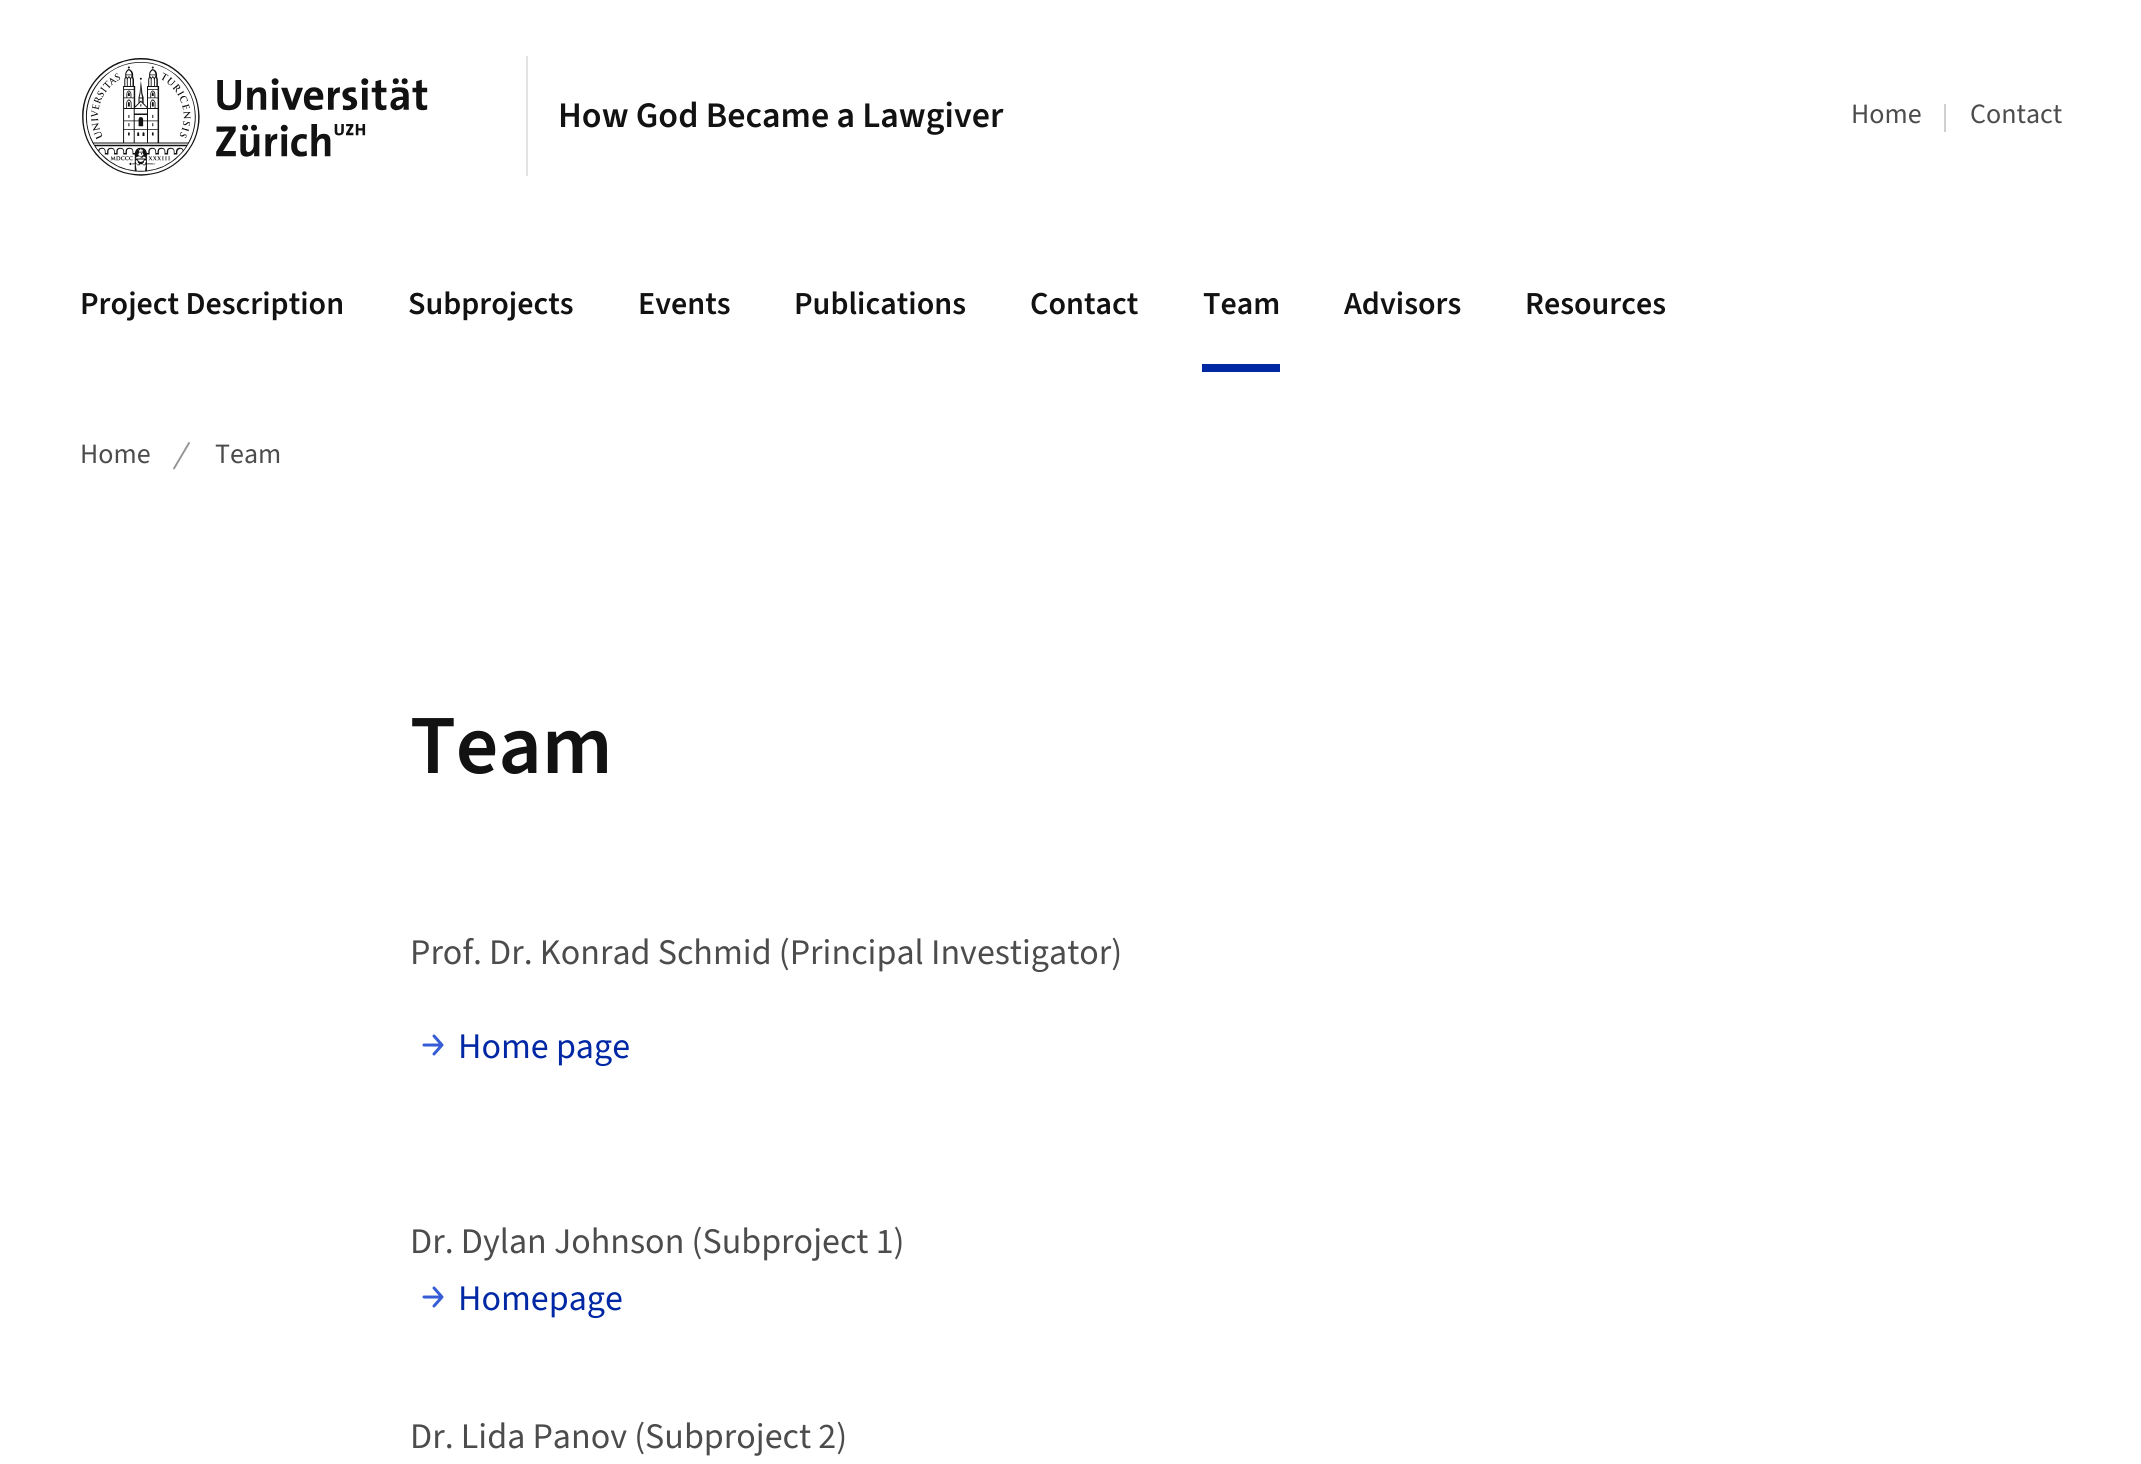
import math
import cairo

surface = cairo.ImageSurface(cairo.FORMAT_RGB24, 2141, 1464)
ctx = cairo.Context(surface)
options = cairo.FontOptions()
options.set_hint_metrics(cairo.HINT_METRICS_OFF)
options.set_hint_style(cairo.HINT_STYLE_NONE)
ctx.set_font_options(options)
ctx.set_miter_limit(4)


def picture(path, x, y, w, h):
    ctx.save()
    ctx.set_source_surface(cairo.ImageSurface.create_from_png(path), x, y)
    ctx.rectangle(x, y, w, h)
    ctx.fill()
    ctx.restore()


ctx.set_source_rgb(1, 1, 1)
ctx.paint()
picture("img1.png", 82, 58, 346, 118)
ctx.set_source_rgb(0.89, 0.89, 0.89)
ctx.rectangle(526, 56, 2, 120)
ctx.fill()
ctx.select_font_face("Source Sans 3 SemiBold")
ctx.set_font_size(36)
ctx.set_source_rgb(0.071, 0.071, 0.071)
ctx.move_to(558, 127)
ctx.show_text("How God Became a Lawgiver")
ctx.select_font_face("Source Sans 3")
ctx.set_font_size(28)
ctx.set_source_rgb(0.298, 0.298, 0.298)
ctx.move_to(1851, 123)
ctx.show_text("Home")
ctx.set_source_rgb(0.816, 0.816, 0.816)
ctx.rectangle(1944, 104, 2, 28)
ctx.fill()
ctx.set_source_rgb(0.298, 0.298, 0.298)
ctx.move_to(1970, 123)
ctx.show_text("Contact")
ctx.select_font_face("Source Sans 3 SemiBold")
ctx.set_font_size(32)
ctx.set_source_rgb(0.071, 0.071, 0.071)
ctx.move_to(80, 314)
ctx.show_text("Project Description")
ctx.move_to(408, 314)
ctx.show_text("Subprojects")
ctx.move_to(638, 314)
ctx.show_text("Events")
ctx.move_to(794, 314)
ctx.show_text("Publications")
ctx.move_to(1030, 314)
ctx.show_text("Contact")
ctx.move_to(1203, 314)
ctx.show_text("Team")
ctx.set_source_rgb(0, 0.157, 0.647)
ctx.rectangle(1202, 364, 78, 8)
ctx.fill()
ctx.set_source_rgb(0.071, 0.071, 0.071)
ctx.move_to(1344, 314)
ctx.show_text("Advisors")
ctx.move_to(1525, 314)
ctx.show_text("Resources")
ctx.select_font_face("Source Sans 3")
ctx.set_font_size(28)
ctx.set_source_rgb(0.298, 0.298, 0.298)
ctx.move_to(80, 463)
ctx.show_text("Home")
ctx.new_path()
ctx.move_to(174, 468.5)
ctx.line_to(189, 443)
ctx.set_source_rgb(0.58, 0.58, 0.58)
ctx.set_line_width(1.9)
ctx.set_line_cap(cairo.LINE_CAP_ROUND)
ctx.stroke()
ctx.set_source_rgb(0.298, 0.298, 0.298)
ctx.move_to(215, 463)
ctx.show_text("Team")
ctx.select_font_face("Source Sans 3 SemiBold")
ctx.set_font_size(84)
ctx.set_source_rgb(0.071, 0.071, 0.071)
ctx.move_to(410, 773)
ctx.show_text("Team")
ctx.select_font_face("Source Sans 3")
ctx.set_font_size(36)
ctx.set_source_rgb(0.298, 0.298, 0.298)
ctx.move_to(410, 964)
ctx.show_text("Prof. Dr. Konrad Schmid (Principal Investigator)")
ctx.new_path()
ctx.move_to(434, 1036)
ctx.line_to(442, 1045)
ctx.move_to(442, 1045)
ctx.line_to(434, 1054)
ctx.move_to(442, 1045)
ctx.line_to(424, 1045)
ctx.set_source_rgb(0.212, 0.365, 0.835)
ctx.set_line_width(3)
ctx.set_line_join(cairo.LINE_JOIN_ROUND)
ctx.stroke()
ctx.set_source_rgb(0, 0.157, 0.647)
ctx.move_to(458, 1058)
ctx.show_text("Home page")
ctx.set_source_rgb(0.298, 0.298, 0.298)
ctx.move_to(410, 1253)
ctx.show_text("Dr. Dylan Johnson (Subproject 1)")
ctx.new_path()
ctx.move_to(434, 1288)
ctx.line_to(442, 1297)
ctx.move_to(442, 1297)
ctx.line_to(434, 1306)
ctx.move_to(442, 1297)
ctx.line_to(424, 1297)
ctx.set_source_rgb(0.212, 0.365, 0.835)
ctx.stroke()
ctx.set_source_rgb(0, 0.157, 0.647)
ctx.move_to(458, 1310)
ctx.show_text("Homepage")
ctx.set_source_rgb(0.298, 0.298, 0.298)
ctx.move_to(410, 1448)
ctx.show_text("Dr. Lida Panov (Subproject 2)")
surface.write_to_png("page.png")
